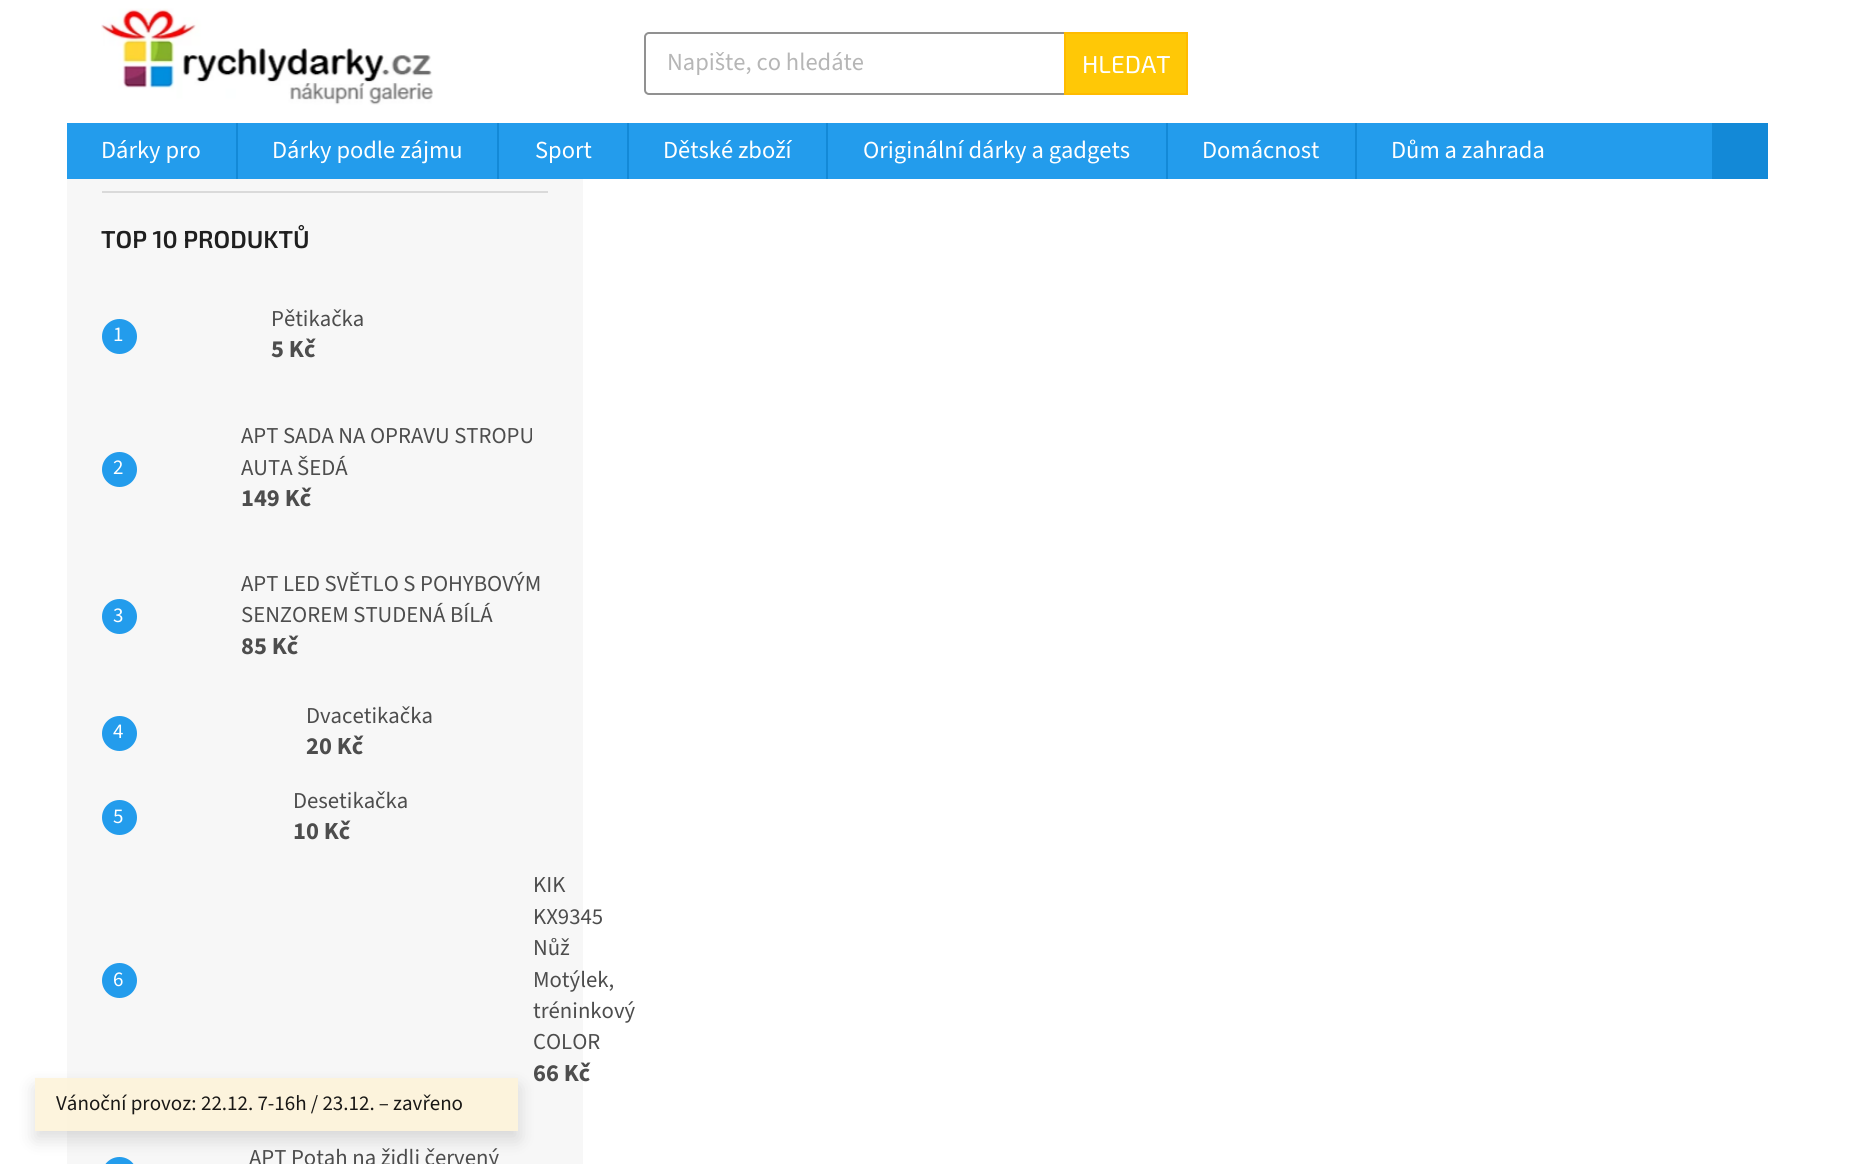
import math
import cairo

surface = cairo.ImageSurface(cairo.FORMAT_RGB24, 1857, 1164)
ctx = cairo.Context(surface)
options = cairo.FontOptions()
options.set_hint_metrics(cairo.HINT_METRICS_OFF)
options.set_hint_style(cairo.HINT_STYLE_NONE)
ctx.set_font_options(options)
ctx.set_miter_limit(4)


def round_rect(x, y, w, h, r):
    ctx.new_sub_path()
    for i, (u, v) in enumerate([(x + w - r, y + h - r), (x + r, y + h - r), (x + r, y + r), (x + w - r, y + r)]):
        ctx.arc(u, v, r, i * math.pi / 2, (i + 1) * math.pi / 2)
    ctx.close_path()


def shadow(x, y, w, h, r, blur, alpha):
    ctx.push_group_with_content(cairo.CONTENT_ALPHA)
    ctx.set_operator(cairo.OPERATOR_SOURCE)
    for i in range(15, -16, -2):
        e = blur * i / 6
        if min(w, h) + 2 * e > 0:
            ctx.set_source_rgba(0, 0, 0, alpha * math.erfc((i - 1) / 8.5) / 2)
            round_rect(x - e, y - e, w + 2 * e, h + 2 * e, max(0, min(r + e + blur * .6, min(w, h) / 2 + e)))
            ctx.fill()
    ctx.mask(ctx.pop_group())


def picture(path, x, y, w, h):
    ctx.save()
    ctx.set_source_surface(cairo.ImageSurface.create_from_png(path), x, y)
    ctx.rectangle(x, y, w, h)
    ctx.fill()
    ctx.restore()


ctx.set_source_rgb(1, 1, 1)
ctx.paint()
picture("img1.png", 101, 8, 332, 97)
round_rect(645, 33, 542, 61, 4)
ctx.set_source_rgb(0.569, 0.569, 0.569)
ctx.stroke()
ctx.select_font_face("Source Sans 3")
ctx.set_font_size(24.5)
ctx.set_source_rgb(0.714, 0.714, 0.714)
ctx.move_to(667, 70)
ctx.show_text("Napište, co hledáte")
ctx.set_source_rgb(1, 0.784, 0.027)
ctx.rectangle(1065, 33, 122, 61)
ctx.fill_preserve()
ctx.set_source_rgb(1, 0.733, 0)
ctx.stroke()
ctx.select_font_face("Exo 2")
ctx.set_source_rgb(1, 1, 1)
ctx.move_to(1082, 73)
ctx.show_text("HLEDAT")
ctx.set_source_rgb(0.137, 0.612, 0.922)
ctx.rectangle(67, 123, 1645, 56)
ctx.fill()
ctx.select_font_face("Source Sans 3")
ctx.set_source_rgb(1, 1, 1)
ctx.move_to(101, 158)
ctx.show_text("Dárky pro")
ctx.set_source_rgb(0.078, 0.537, 0.843)
ctx.rectangle(236, 123, 2, 56)
ctx.fill()
ctx.set_source_rgb(1, 1, 1)
ctx.move_to(272, 158)
ctx.show_text("Dárky podle zájmu")
ctx.set_source_rgb(0.078, 0.537, 0.843)
ctx.rectangle(497, 123, 2, 56)
ctx.fill()
ctx.set_source_rgb(1, 1, 1)
ctx.move_to(535, 158)
ctx.show_text("Sport")
ctx.set_source_rgb(0.078, 0.537, 0.843)
ctx.rectangle(627, 123, 2, 56)
ctx.fill()
ctx.set_source_rgb(1, 1, 1)
ctx.move_to(663, 158)
ctx.show_text("Dětské zboží")
ctx.set_source_rgb(0.078, 0.537, 0.843)
ctx.rectangle(826, 123, 2, 56)
ctx.fill()
ctx.set_source_rgb(1, 1, 1)
ctx.move_to(863, 158)
ctx.show_text("Originální dárky a gadgets")
ctx.set_source_rgb(0.078, 0.537, 0.843)
ctx.rectangle(1166, 123, 2, 56)
ctx.fill()
ctx.set_source_rgb(1, 1, 1)
ctx.move_to(1202, 158)
ctx.show_text("Domácnost")
ctx.set_source_rgb(0.078, 0.537, 0.843)
ctx.rectangle(1355, 123, 2, 56)
ctx.fill()
ctx.set_source_rgb(1, 1, 1)
ctx.move_to(1391, 158)
ctx.show_text("Dům a zahrada")
ctx.set_source_rgb(0.078, 0.537, 0.843)
ctx.rectangle(1712, 123, 56, 56)
ctx.fill()
ctx.set_source_rgb(0.965, 0.965, 0.965)
ctx.rectangle(67, 179, 516, 985)
ctx.fill()
ctx.set_source_rgb(0.855, 0.855, 0.855)
ctx.rectangle(102, 191, 446, 2)
ctx.fill()
ctx.select_font_face("Exo 2 SemiBold")
ctx.set_source_rgb(0.122, 0.122, 0.122)
ctx.move_to(101, 248)
ctx.show_text("TOP 10 PRODUKTŮ")
ctx.set_source_rgb(0.137, 0.612, 0.922)
ctx.new_path()
ctx.arc(119.5, 336.5, 17.5, 0, 2 * math.pi)
ctx.fill()
ctx.select_font_face("Source Sans 3")
ctx.set_font_size(21)
ctx.set_source_rgb(1, 1, 1)
ctx.move_to(113, 341)
ctx.show_text("1")
ctx.set_font_size(22.75)
ctx.set_source_rgb(0.302, 0.302, 0.302)
ctx.move_to(271, 326)
ctx.show_text("Pětikačka")
ctx.select_font_face("Source Sans 3", cairo.FONT_SLANT_NORMAL, cairo.FONT_WEIGHT_BOLD)
ctx.set_font_size(24.5)
ctx.move_to(271, 357)
ctx.show_text("5 Kč")
ctx.set_source_rgb(0.137, 0.612, 0.922)
ctx.new_path()
ctx.arc(119.5, 469.5, 17.5, 0, 2 * math.pi)
ctx.fill()
ctx.select_font_face("Source Sans 3")
ctx.set_font_size(21)
ctx.set_source_rgb(1, 1, 1)
ctx.move_to(113, 474)
ctx.show_text("2")
ctx.set_font_size(22.75)
ctx.set_source_rgb(0.302, 0.302, 0.302)
ctx.move_to(241, 443)
ctx.show_text("APT SADA NA OPRAVU STROPU")
ctx.move_to(241, 475)
ctx.show_text("AUTA ŠEDÁ")
ctx.select_font_face("Source Sans 3", cairo.FONT_SLANT_NORMAL, cairo.FONT_WEIGHT_BOLD)
ctx.set_font_size(24.5)
ctx.move_to(241, 506)
ctx.show_text("149 Kč")
ctx.set_source_rgb(0.137, 0.612, 0.922)
ctx.new_path()
ctx.arc(119.5, 616.5, 17.5, 0, 2 * math.pi)
ctx.fill()
ctx.select_font_face("Source Sans 3")
ctx.set_font_size(21)
ctx.set_source_rgb(1, 1, 1)
ctx.move_to(113, 622)
ctx.show_text("3")
ctx.set_font_size(22.75)
ctx.set_source_rgb(0.302, 0.302, 0.302)
ctx.move_to(241, 591)
ctx.show_text("APT LED SVĚTLO S POHYBOVÝM")
ctx.move_to(241, 622)
ctx.show_text("SENZOREM STUDENÁ BÍLÁ")
ctx.select_font_face("Source Sans 3", cairo.FONT_SLANT_NORMAL, cairo.FONT_WEIGHT_BOLD)
ctx.set_font_size(24.5)
ctx.move_to(241, 654)
ctx.show_text("85 Kč")
ctx.set_source_rgb(0.137, 0.612, 0.922)
ctx.new_path()
ctx.arc(119.5, 733.5, 17.5, 0, 2 * math.pi)
ctx.fill()
ctx.select_font_face("Source Sans 3")
ctx.set_font_size(21)
ctx.set_source_rgb(1, 1, 1)
ctx.move_to(113, 738)
ctx.show_text("4")
ctx.set_font_size(22.75)
ctx.set_source_rgb(0.302, 0.302, 0.302)
ctx.move_to(306, 723)
ctx.show_text("Dvacetikačka")
ctx.select_font_face("Source Sans 3", cairo.FONT_SLANT_NORMAL, cairo.FONT_WEIGHT_BOLD)
ctx.set_font_size(24.5)
ctx.move_to(306, 754)
ctx.show_text("20 Kč")
ctx.set_source_rgb(0.137, 0.612, 0.922)
ctx.new_path()
ctx.arc(119.5, 817.5, 17.5, 0, 2 * math.pi)
ctx.fill()
ctx.select_font_face("Source Sans 3")
ctx.set_font_size(21)
ctx.set_source_rgb(1, 1, 1)
ctx.move_to(113, 823)
ctx.show_text("5")
ctx.set_font_size(22.75)
ctx.set_source_rgb(0.302, 0.302, 0.302)
ctx.move_to(293, 808)
ctx.show_text("Desetikačka")
ctx.select_font_face("Source Sans 3", cairo.FONT_SLANT_NORMAL, cairo.FONT_WEIGHT_BOLD)
ctx.set_font_size(24.5)
ctx.move_to(293, 839)
ctx.show_text("10 Kč")
ctx.set_source_rgb(0.137, 0.612, 0.922)
ctx.new_path()
ctx.arc(119.5, 980.5, 17.5, 0, 2 * math.pi)
ctx.fill()
ctx.select_font_face("Source Sans 3")
ctx.set_font_size(21)
ctx.set_source_rgb(1, 1, 1)
ctx.move_to(113, 986)
ctx.show_text("6")
ctx.set_font_size(22.75)
ctx.set_source_rgb(0.302, 0.302, 0.302)
ctx.move_to(533, 892)
ctx.show_text("KIK")
ctx.move_to(533, 924)
ctx.show_text("KX9345")
ctx.move_to(533, 955)
ctx.show_text("Nůž")
ctx.move_to(533, 987)
ctx.show_text("Motýlek,")
ctx.move_to(533, 1018)
ctx.show_text("tréninkový")
ctx.move_to(533, 1049)
ctx.show_text("COLOR")
ctx.select_font_face("Source Sans 3", cairo.FONT_SLANT_NORMAL, cairo.FONT_WEIGHT_BOLD)
ctx.set_font_size(24.5)
ctx.move_to(533, 1081)
ctx.show_text("66 Kč")
ctx.set_source_rgb(0.137, 0.612, 0.922)
round_rect(102, 1157, 35, 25, 17.5)
ctx.fill()
ctx.select_font_face("Source Sans 3")
ctx.set_font_size(22.75)
ctx.set_source_rgb(0.302, 0.302, 0.302)
ctx.move_to(249, 1165)
ctx.show_text("APT Potah na židli červený")
ctx.save()
ctx.set_fill_rule(cairo.FILL_RULE_EVEN_ODD)
ctx.new_path()
ctx.move_to(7, 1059)
ctx.line_to(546, 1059)
ctx.line_to(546, 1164)
ctx.line_to(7, 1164)
ctx.close_path()
ctx.move_to(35, 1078)
ctx.line_to(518, 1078)
ctx.line_to(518, 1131)
ctx.line_to(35, 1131)
ctx.close_path()
ctx.clip()
ctx.set_source_rgb(0, 0, 0)
shadow(35, 1087, 483, 52, 0, 9, 0.14)
ctx.restore()
ctx.set_source_rgba(0.992, 0.953, 0.855, 0.9)
ctx.rectangle(35, 1078, 483, 53)
ctx.fill()
ctx.set_font_size(21)
ctx.set_source_rgb(0.098, 0.094, 0.086)
ctx.move_to(56, 1110)
ctx.show_text("Vánoční provoz:")
ctx.move_to(201, 1110)
ctx.show_text("22.12. 7-16h / 23.12. – zavřeno")
surface.write_to_png("page.png")
